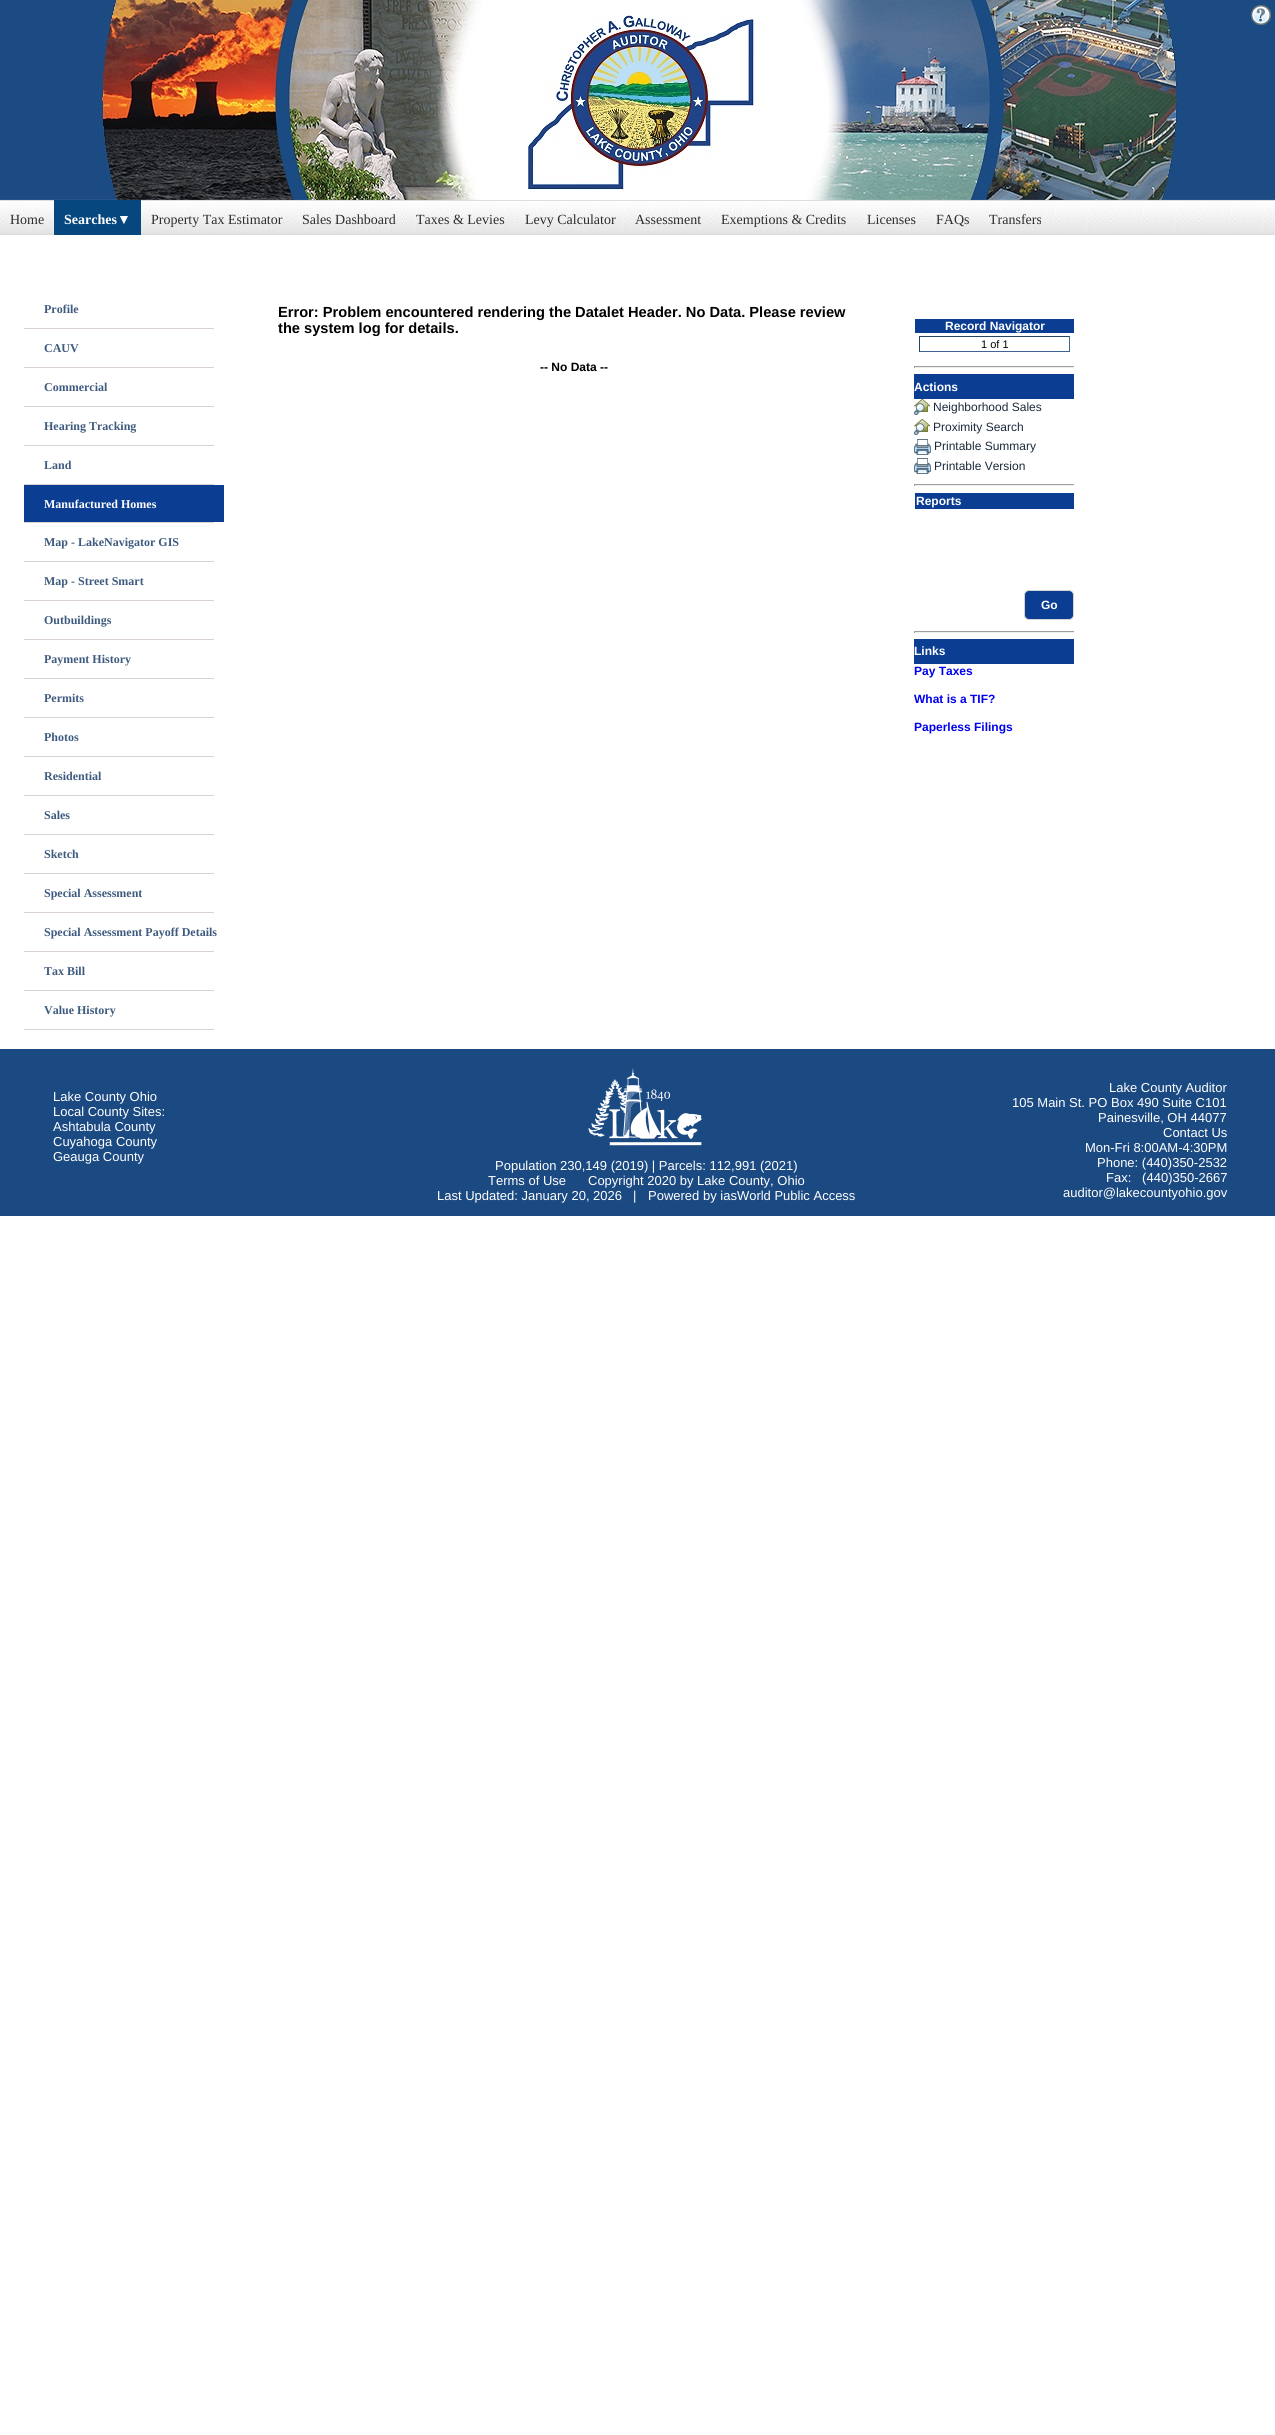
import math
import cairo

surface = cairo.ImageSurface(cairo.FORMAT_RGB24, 1275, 2435)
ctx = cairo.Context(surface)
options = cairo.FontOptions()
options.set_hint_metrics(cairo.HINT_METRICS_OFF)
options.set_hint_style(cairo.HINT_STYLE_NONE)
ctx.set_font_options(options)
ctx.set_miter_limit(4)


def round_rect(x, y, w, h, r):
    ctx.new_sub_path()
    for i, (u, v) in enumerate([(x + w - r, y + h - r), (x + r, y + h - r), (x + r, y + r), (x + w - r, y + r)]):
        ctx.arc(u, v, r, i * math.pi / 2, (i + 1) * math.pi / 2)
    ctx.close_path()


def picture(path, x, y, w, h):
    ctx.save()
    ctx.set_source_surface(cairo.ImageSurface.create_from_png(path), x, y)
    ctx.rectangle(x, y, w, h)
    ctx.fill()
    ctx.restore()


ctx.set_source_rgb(1, 1, 1)
ctx.paint()
picture("img1.png", 0, 0, 1275, 200)
picture("img2.png", 1251, 5, 20, 20)
picture("img3.png", 1052, 200, 223, 35)
picture("img4.png", 0, 200, 54, 35)
ctx.select_font_face("Liberation Serif")
ctx.set_font_size(14)
ctx.set_source_rgb(0.176, 0.176, 0.176)
ctx.move_to(10, 224)
ctx.show_text("Home")
ctx.set_source_rgb(0.024, 0.278, 0.502)
ctx.rectangle(54, 200, 87, 35)
ctx.fill()
ctx.select_font_face("Liberation Serif", cairo.FONT_SLANT_NORMAL, cairo.FONT_WEIGHT_BOLD)
ctx.set_source_rgb(1, 1, 1)
ctx.move_to(64, 224)
ctx.show_text("Searches▼")
picture("img5.png", 141, 200, 151, 35)
ctx.select_font_face("Liberation Serif")
ctx.set_source_rgb(0.176, 0.176, 0.176)
ctx.move_to(151, 224)
ctx.show_text("Property Tax Estimator")
picture("img6.png", 292, 200, 114, 35)
ctx.move_to(302, 224)
ctx.show_text("Sales Dashboard")
picture("img7.png", 406, 200, 109, 35)
ctx.move_to(416, 224)
ctx.show_text("Taxes & Levies")
picture("img8.png", 515, 200, 110, 35)
ctx.move_to(525, 224)
ctx.show_text("Levy Calculator")
picture("img9.png", 625, 200, 86, 35)
ctx.move_to(635, 224)
ctx.show_text("Assessment")
picture("img10.png", 711, 200, 146, 35)
ctx.move_to(721, 224)
ctx.show_text("Exemptions & Credits")
picture("img11.png", 857, 200, 69, 35)
ctx.move_to(867, 224)
ctx.show_text("Licenses")
picture("img12.png", 926, 200, 53, 35)
ctx.move_to(936, 224)
ctx.show_text("FAQs")
picture("img13.png", 979, 200, 73, 35)
ctx.move_to(989, 224)
ctx.show_text("Transfers")
ctx.set_source_rgb(0.855, 0.82, 0.82)
ctx.rectangle(24, 328, 190, 1)
ctx.fill()
ctx.select_font_face("Liberation Serif", cairo.FONT_SLANT_NORMAL, cairo.FONT_WEIGHT_BOLD)
ctx.set_font_size(12)
ctx.set_source_rgb(0.243, 0.357, 0.498)
ctx.move_to(44, 313)
ctx.show_text("Profile")
ctx.set_source_rgb(0.855, 0.82, 0.82)
ctx.rectangle(24, 367, 190, 1)
ctx.fill()
ctx.set_source_rgb(0.243, 0.357, 0.498)
ctx.move_to(44, 352)
ctx.show_text("CAUV")
ctx.set_source_rgb(0.855, 0.82, 0.82)
ctx.rectangle(24, 406, 190, 1)
ctx.fill()
ctx.set_source_rgb(0.243, 0.357, 0.498)
ctx.move_to(44, 391)
ctx.show_text("Commercial")
ctx.set_source_rgb(0.855, 0.82, 0.82)
ctx.rectangle(24, 445, 190, 1)
ctx.fill()
ctx.set_source_rgb(0.243, 0.357, 0.498)
ctx.move_to(44, 430)
ctx.show_text("Hearing Tracking")
ctx.set_source_rgb(0.855, 0.82, 0.82)
ctx.rectangle(24, 484, 190, 1)
ctx.fill()
ctx.set_source_rgb(0.243, 0.357, 0.498)
ctx.move_to(44, 469)
ctx.show_text("Land")
ctx.set_source_rgb(0.855, 0.82, 0.82)
ctx.rectangle(24, 522, 190, 1)
ctx.fill()
ctx.set_source_rgb(0.043, 0.239, 0.573)
ctx.rectangle(24, 485, 200, 37)
ctx.fill()
ctx.set_source_rgb(1, 1, 1)
ctx.move_to(44, 508)
ctx.show_text("Manufactured Homes")
ctx.set_source_rgb(0.855, 0.82, 0.82)
ctx.rectangle(24, 561, 190, 1)
ctx.fill()
ctx.set_source_rgb(0.243, 0.357, 0.498)
ctx.move_to(44, 546)
ctx.show_text("Map - LakeNavigator GIS")
ctx.set_source_rgb(0.855, 0.82, 0.82)
ctx.rectangle(24, 600, 190, 1)
ctx.fill()
ctx.set_source_rgb(0.243, 0.357, 0.498)
ctx.move_to(44, 585)
ctx.show_text("Map - Street Smart")
ctx.set_source_rgb(0.855, 0.82, 0.82)
ctx.rectangle(24, 639, 190, 1)
ctx.fill()
ctx.set_source_rgb(0.243, 0.357, 0.498)
ctx.move_to(44, 624)
ctx.show_text("Outbuildings")
ctx.set_source_rgb(0.855, 0.82, 0.82)
ctx.rectangle(24, 678, 190, 1)
ctx.fill()
ctx.set_source_rgb(0.243, 0.357, 0.498)
ctx.move_to(44, 663)
ctx.show_text("Payment History")
ctx.set_source_rgb(0.855, 0.82, 0.82)
ctx.rectangle(24, 717, 190, 1)
ctx.fill()
ctx.set_source_rgb(0.243, 0.357, 0.498)
ctx.move_to(44, 702)
ctx.show_text("Permits")
ctx.set_source_rgb(0.855, 0.82, 0.82)
ctx.rectangle(24, 756, 190, 1)
ctx.fill()
ctx.set_source_rgb(0.243, 0.357, 0.498)
ctx.move_to(44, 741)
ctx.show_text("Photos")
ctx.set_source_rgb(0.855, 0.82, 0.82)
ctx.rectangle(24, 795, 190, 1)
ctx.fill()
ctx.set_source_rgb(0.243, 0.357, 0.498)
ctx.move_to(44, 780)
ctx.show_text("Residential")
ctx.set_source_rgb(0.855, 0.82, 0.82)
ctx.rectangle(24, 834, 190, 1)
ctx.fill()
ctx.set_source_rgb(0.243, 0.357, 0.498)
ctx.move_to(44, 819)
ctx.show_text("Sales")
ctx.set_source_rgb(0.855, 0.82, 0.82)
ctx.rectangle(24, 873, 190, 1)
ctx.fill()
ctx.set_source_rgb(0.243, 0.357, 0.498)
ctx.move_to(44, 858)
ctx.show_text("Sketch")
ctx.set_source_rgb(0.855, 0.82, 0.82)
ctx.rectangle(24, 912, 190, 1)
ctx.fill()
ctx.set_source_rgb(0.243, 0.357, 0.498)
ctx.move_to(44, 897)
ctx.show_text("Special Assessment")
ctx.set_source_rgb(0.855, 0.82, 0.82)
ctx.rectangle(24, 951, 190, 1)
ctx.fill()
ctx.set_source_rgb(0.243, 0.357, 0.498)
ctx.move_to(44, 936)
ctx.show_text("Special Assessment Payoff Details")
ctx.set_source_rgb(0.855, 0.82, 0.82)
ctx.rectangle(24, 990, 190, 1)
ctx.fill()
ctx.set_source_rgb(0.243, 0.357, 0.498)
ctx.move_to(44, 975)
ctx.show_text("Tax Bill")
ctx.set_source_rgb(0.855, 0.82, 0.82)
ctx.rectangle(24, 1029, 190, 1)
ctx.fill()
ctx.set_source_rgb(0.243, 0.357, 0.498)
ctx.move_to(44, 1014)
ctx.show_text("Value History")
ctx.select_font_face("Liberation Sans", cairo.FONT_SLANT_NORMAL, cairo.FONT_WEIGHT_BOLD)
ctx.set_font_size(14.65)
ctx.set_source_rgb(0, 0, 0)
ctx.move_to(278, 317)
ctx.show_text("Error: Problem encountered rendering the Datalet Header. No Data. Please review")
ctx.move_to(278, 333)
ctx.show_text("the system log for details.")
ctx.set_font_size(12)
ctx.move_to(540, 371)
ctx.show_text("-- No Data --")
ctx.set_source_rgb(0.043, 0.239, 0.573)
ctx.rectangle(915, 319, 159, 14)
ctx.fill()
ctx.set_source_rgb(1, 1, 1)
ctx.move_to(945, 330)
ctx.show_text("Record Navigator")
ctx.set_source_rgb(0.161, 0.263, 0.4)
ctx.rectangle(919, 336, 151, 1)
ctx.fill()
ctx.set_source_rgb(0.239, 0.396, 0.6)
ctx.rectangle(1069, 336, 1, 16)
ctx.fill()
ctx.rectangle(919, 351, 151, 1)
ctx.fill()
ctx.set_source_rgb(0.161, 0.263, 0.4)
ctx.rectangle(919, 336, 1, 16)
ctx.fill()
ctx.select_font_face("Liberation Sans")
ctx.set_font_size(11)
ctx.set_source_rgb(0, 0, 0)
ctx.move_to(981, 348)
ctx.show_text("1 of 1")
ctx.set_source_rgb(0.624, 0.624, 0.624)
ctx.rectangle(914, 366, 160, 1)
ctx.fill()
ctx.set_source_rgb(0.933, 0.933, 0.933)
ctx.rectangle(914, 367, 160, 1)
ctx.fill()
ctx.set_source_rgb(0.624, 0.624, 0.624)
ctx.rectangle(914, 366, 1, 2)
ctx.fill()
ctx.set_source_rgb(0.043, 0.239, 0.573)
ctx.rectangle(914, 374, 160, 25)
ctx.fill()
ctx.select_font_face("Liberation Sans", cairo.FONT_SLANT_NORMAL, cairo.FONT_WEIGHT_BOLD)
ctx.set_font_size(12)
ctx.set_source_rgb(1, 1, 1)
ctx.move_to(914, 391)
ctx.show_text("Actions")
picture("img14.png", 914, 399, 16, 16)
ctx.select_font_face("Liberation Sans")
ctx.set_source_rgb(0.102, 0.165, 0.231)
ctx.move_to(933, 411)
ctx.show_text("Neighborhood Sales")
picture("img14.png", 914, 419, 16, 16)
ctx.move_to(933, 431)
ctx.show_text("Proximity Search")
picture("img15.png", 914, 439, 17, 16)
ctx.move_to(934, 450)
ctx.show_text("Printable Summary")
picture("img15.png", 914, 458, 17, 16)
ctx.move_to(934, 470)
ctx.show_text("Printable Version")
ctx.set_source_rgb(0.624, 0.624, 0.624)
ctx.rectangle(914, 484, 160, 1)
ctx.fill()
ctx.set_source_rgb(0.933, 0.933, 0.933)
ctx.rectangle(914, 485, 160, 1)
ctx.fill()
ctx.set_source_rgb(0.624, 0.624, 0.624)
ctx.rectangle(914, 484, 1, 2)
ctx.fill()
ctx.set_source_rgb(0.043, 0.239, 0.573)
ctx.rectangle(915, 493, 159, 16)
ctx.fill()
ctx.select_font_face("Liberation Sans", cairo.FONT_SLANT_NORMAL, cairo.FONT_WEIGHT_BOLD)
ctx.set_source_rgb(1, 1, 1)
ctx.move_to(916, 505)
ctx.show_text("Reports")
ctx.set_source_rgb(0.043, 0.239, 0.573)
round_rect(1024.5, 590.5, 49, 29, 4.5)
ctx.fill_preserve()
ctx.set_source_rgb(0.827, 0.827, 0.827)
ctx.set_line_width(1)
ctx.stroke()
ctx.set_source_rgb(1, 1, 1)
ctx.move_to(1041, 609)
ctx.show_text("Go")
ctx.set_source_rgb(0.624, 0.624, 0.624)
ctx.rectangle(914, 631, 160, 1)
ctx.fill()
ctx.set_source_rgb(0.933, 0.933, 0.933)
ctx.rectangle(914, 632, 160, 1)
ctx.fill()
ctx.set_source_rgb(0.624, 0.624, 0.624)
ctx.rectangle(914, 631, 1, 2)
ctx.fill()
ctx.set_source_rgb(0.043, 0.239, 0.573)
ctx.rectangle(914, 639, 160, 25)
ctx.fill()
ctx.set_source_rgb(1, 1, 1)
ctx.move_to(914, 655)
ctx.show_text("Links")
ctx.set_source_rgb(0, 0, 0.933)
ctx.move_to(914, 675)
ctx.show_text("Pay Taxes")
ctx.move_to(914, 703)
ctx.show_text("What is a TIF?")
ctx.move_to(914, 731)
ctx.show_text("Paperless Filings")
ctx.set_source_rgb(0.106, 0.29, 0.514)
ctx.rectangle(0, 1049, 1275, 167)
ctx.fill()
ctx.select_font_face("Liberation Sans")
ctx.set_font_size(13)
ctx.set_source_rgb(1, 1, 1)
ctx.move_to(53, 1101)
ctx.show_text("Lake County Ohio")
ctx.move_to(53, 1116)
ctx.show_text("Local County Sites:")
ctx.move_to(53, 1131)
ctx.show_text("Ashtabula County")
ctx.move_to(53, 1146)
ctx.show_text("Cuyahoga County")
ctx.move_to(53, 1161)
ctx.show_text("Geauga County")
ctx.move_to(1109, 1092)
ctx.show_text("Lake County Auditor")
ctx.move_to(1012, 1107)
ctx.show_text("105 Main St. PO Box 490 Suite C101")
ctx.move_to(1098, 1122)
ctx.show_text("Painesville, OH 44077")
ctx.move_to(1163, 1137)
ctx.show_text("Contact Us")
ctx.move_to(1085, 1152)
ctx.show_text("Mon-Fri 8:00AM-4:30PM")
ctx.move_to(1097, 1167)
ctx.show_text("Phone: (440)350-2532")
ctx.move_to(1106, 1182)
ctx.show_text("Fax:   (440)350-2667")
ctx.move_to(1063, 1197)
ctx.show_text("auditor@lakecountyohio.gov")
picture("img16.png", 588, 1068, 114, 78)
ctx.move_to(495, 1170)
ctx.show_text("Population 230,149 (2019) | Parcels: 112,991 (2021)")
ctx.move_to(488, 1185)
ctx.show_text("Terms of Use")
ctx.move_to(588, 1185)
ctx.show_text("Copyright 2020 by Lake County, Ohio")
ctx.move_to(437, 1200)
ctx.show_text("Last Updated: January 20, 2026")
ctx.move_to(633, 1200)
ctx.show_text("|")
ctx.move_to(648, 1200)
ctx.show_text("Powered by iasWorld Public Access")
surface.write_to_png("page.png")
